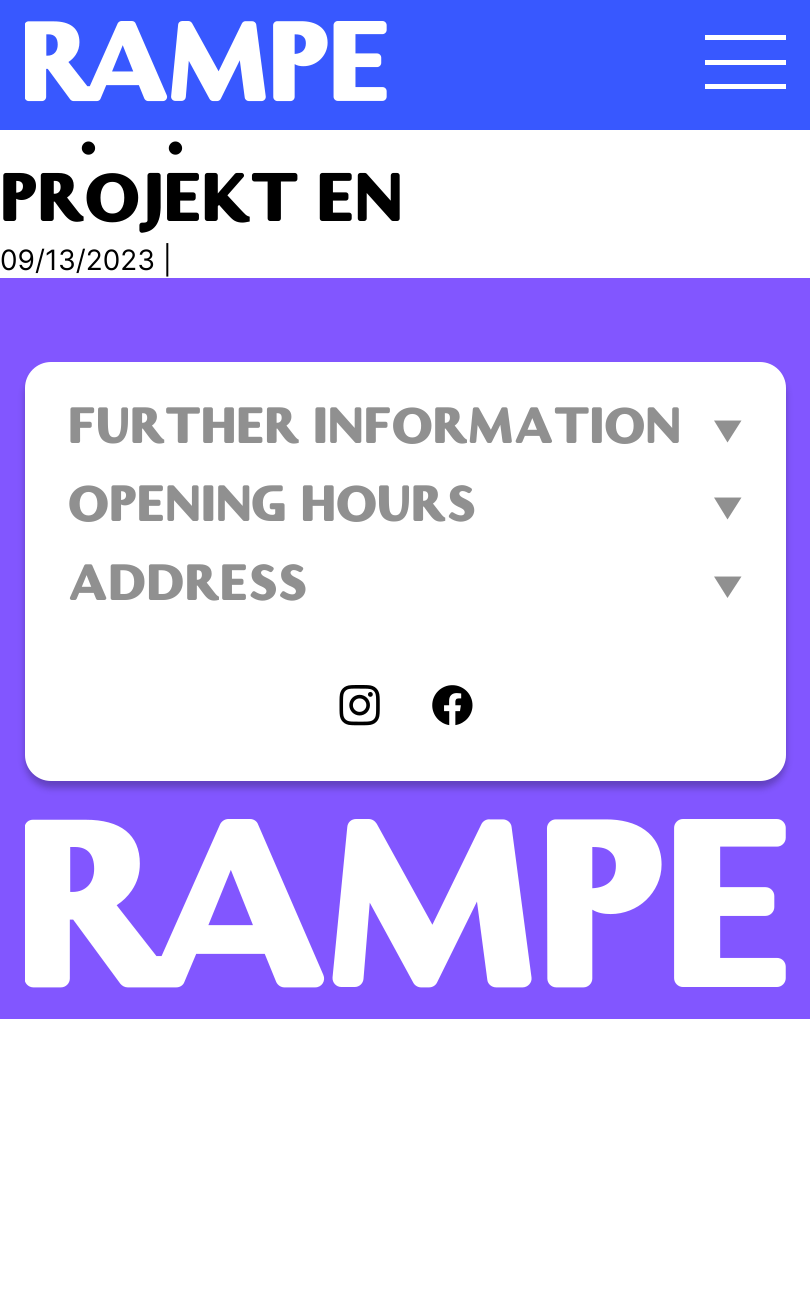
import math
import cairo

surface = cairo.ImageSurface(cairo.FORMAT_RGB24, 810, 1311)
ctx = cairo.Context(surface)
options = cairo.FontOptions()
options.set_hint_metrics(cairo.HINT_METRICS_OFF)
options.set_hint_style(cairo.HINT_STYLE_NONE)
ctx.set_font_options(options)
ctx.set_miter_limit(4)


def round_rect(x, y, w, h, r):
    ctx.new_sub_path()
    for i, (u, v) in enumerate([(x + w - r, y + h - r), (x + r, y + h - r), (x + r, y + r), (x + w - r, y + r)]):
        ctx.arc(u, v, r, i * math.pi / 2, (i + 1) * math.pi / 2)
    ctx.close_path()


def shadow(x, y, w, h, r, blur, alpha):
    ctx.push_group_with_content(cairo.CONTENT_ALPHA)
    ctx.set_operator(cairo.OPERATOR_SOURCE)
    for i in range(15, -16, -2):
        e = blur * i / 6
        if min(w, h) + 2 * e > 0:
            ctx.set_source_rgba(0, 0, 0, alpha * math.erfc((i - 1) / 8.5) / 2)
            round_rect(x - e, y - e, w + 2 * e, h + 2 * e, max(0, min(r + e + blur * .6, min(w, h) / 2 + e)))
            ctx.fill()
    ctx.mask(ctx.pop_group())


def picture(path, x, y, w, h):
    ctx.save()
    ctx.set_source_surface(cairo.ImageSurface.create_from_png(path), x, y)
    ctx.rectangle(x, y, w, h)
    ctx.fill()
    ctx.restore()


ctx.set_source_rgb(1, 1, 1)
ctx.paint()
ctx.set_source_rgb(0.22, 0.345, 1)
ctx.rectangle(0, 0, 810, 130)
ctx.fill()
picture("img1.png", 25, 21, 362, 81)
ctx.set_source_rgb(1, 1, 1)
ctx.rectangle(705, 35, 81, 5)
ctx.fill()
ctx.rectangle(705, 60, 81, 5)
ctx.fill()
ctx.rectangle(705, 84, 81, 5)
ctx.fill()
ctx.select_font_face("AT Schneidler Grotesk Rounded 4 Black")
ctx.set_font_size(61.25)
ctx.set_source_rgb(0, 0, 0)
ctx.move_to(80, 154)
ctx.show_text(".")
ctx.move_to(167, 154)
ctx.show_text(".")
ctx.move_to(0, 221)
ctx.show_text("PROJEKT EN")
ctx.select_font_face("Inter")
ctx.set_font_size(28)
ctx.move_to(0, 270)
ctx.show_text("09/13/2023 |")
ctx.set_source_rgb(0.51, 0.337, 1)
ctx.rectangle(0, 278, 810, 741)
ctx.fill()
ctx.set_source_rgb(0, 0, 0)
shadow(25, 369, 761, 419, 26, 3.5, 0.25)
ctx.set_source_rgb(1, 1, 1)
round_rect(25, 362, 761, 419, 26)
ctx.fill()
ctx.select_font_face("AT Schneidler Grotesk Rounded 4 Black")
ctx.set_font_size(45.5)
ctx.set_source_rgb(0.565, 0.565, 0.565)
ctx.move_to(68, 443)
ctx.show_text("FURTHER INFORMATION")
ctx.new_path()
ctx.move_to(727.5, 442.5)
ctx.line_to(714, 420.5)
ctx.line_to(741.5, 420.5)
ctx.close_path()
ctx.fill()
ctx.move_to(68, 521)
ctx.show_text("OPENING HOURS")
ctx.new_path()
ctx.move_to(727.5, 519.5)
ctx.line_to(714, 497.5)
ctx.line_to(741.5, 497.5)
ctx.close_path()
ctx.fill()
ctx.move_to(68, 600)
ctx.show_text("ADDRESS")
ctx.new_path()
ctx.move_to(727.5, 598)
ctx.line_to(714, 576.5)
ctx.line_to(741.5, 576.5)
ctx.close_path()
ctx.fill()
picture("img2.png", 339, 685, 41, 41)
picture("img3.png", 432, 685, 41, 41)
picture("img4.png", 25, 819, 761, 169)
surface.write_to_png("page.png")
